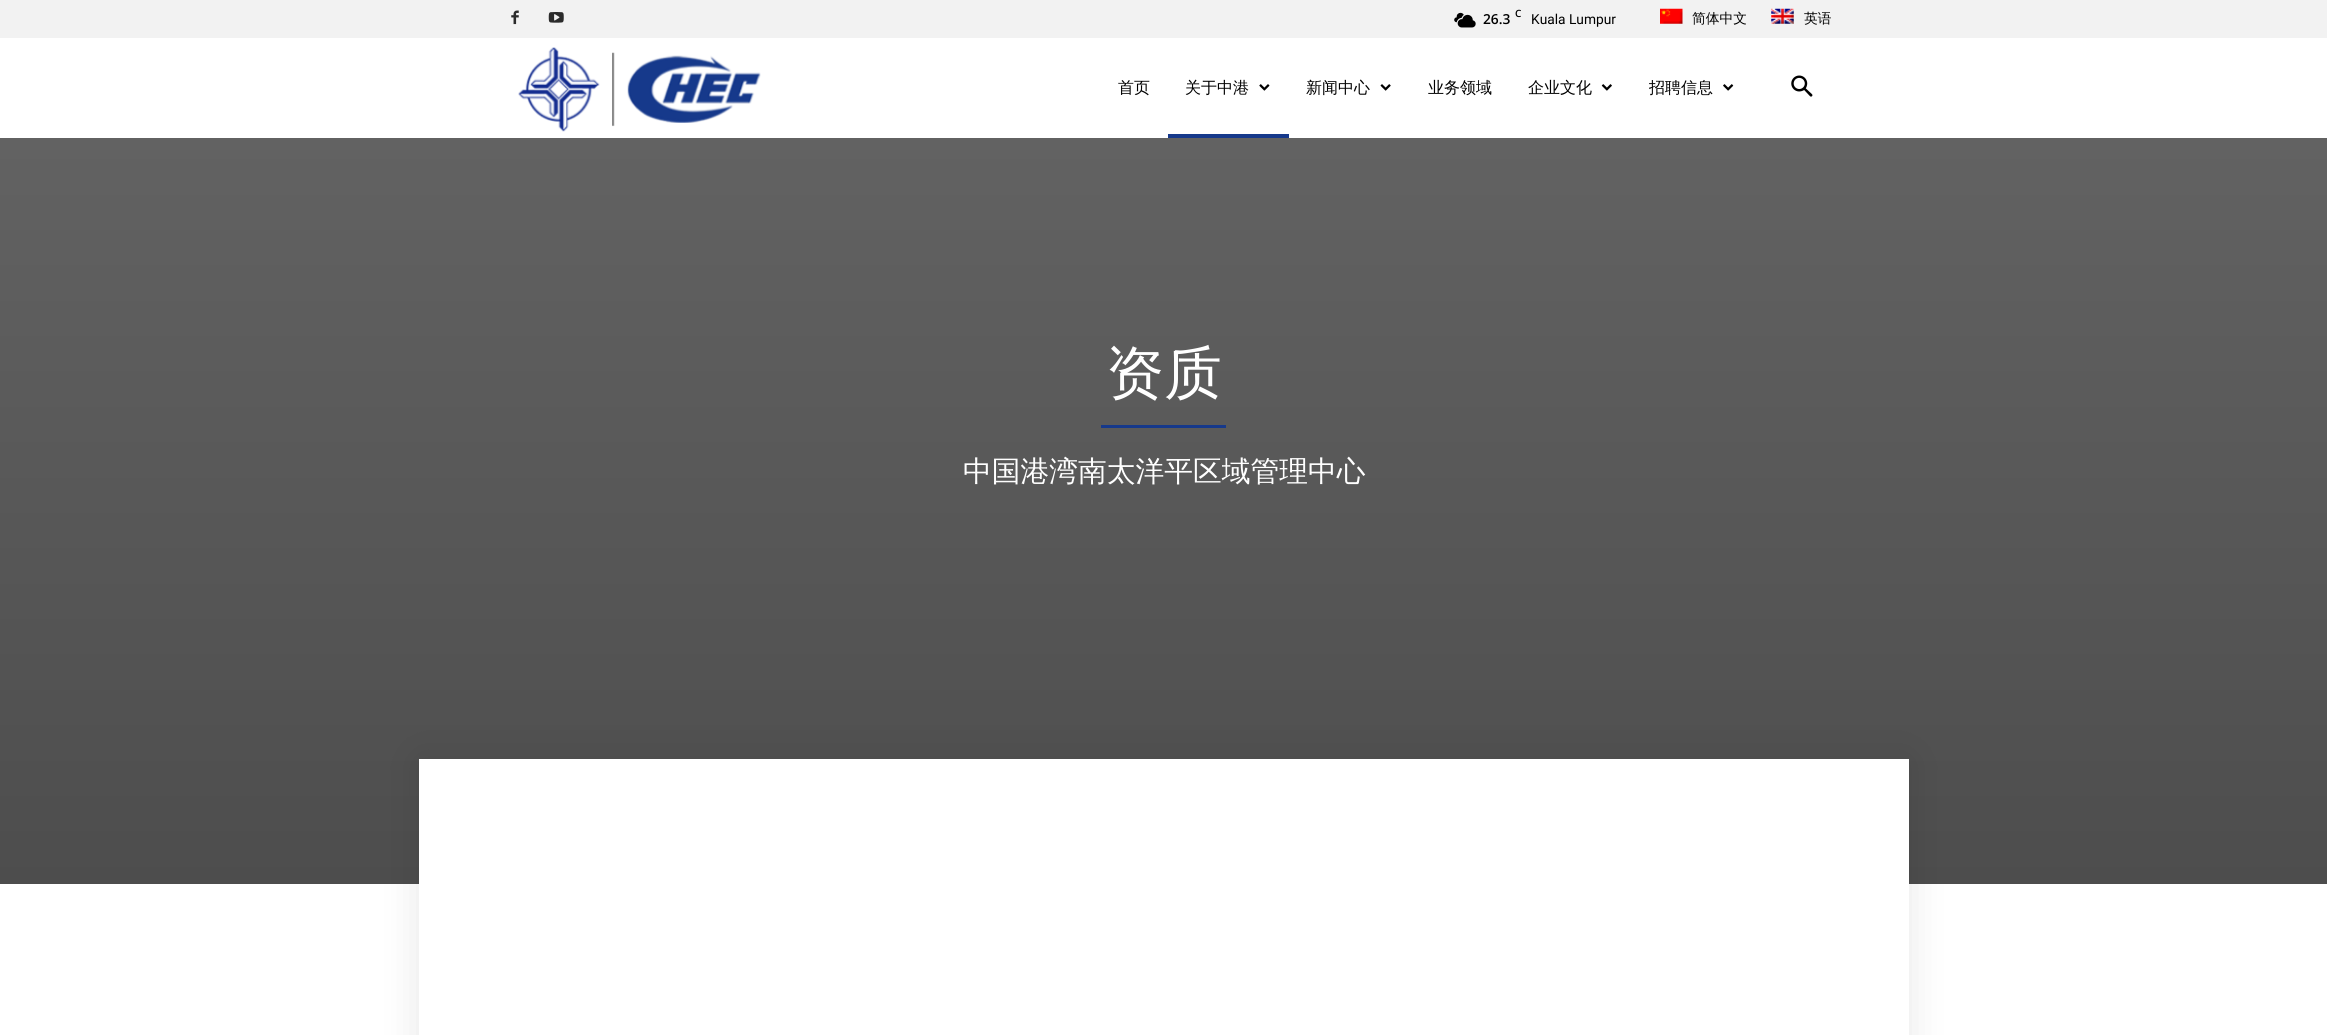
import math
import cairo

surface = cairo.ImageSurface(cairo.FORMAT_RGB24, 2327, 1035)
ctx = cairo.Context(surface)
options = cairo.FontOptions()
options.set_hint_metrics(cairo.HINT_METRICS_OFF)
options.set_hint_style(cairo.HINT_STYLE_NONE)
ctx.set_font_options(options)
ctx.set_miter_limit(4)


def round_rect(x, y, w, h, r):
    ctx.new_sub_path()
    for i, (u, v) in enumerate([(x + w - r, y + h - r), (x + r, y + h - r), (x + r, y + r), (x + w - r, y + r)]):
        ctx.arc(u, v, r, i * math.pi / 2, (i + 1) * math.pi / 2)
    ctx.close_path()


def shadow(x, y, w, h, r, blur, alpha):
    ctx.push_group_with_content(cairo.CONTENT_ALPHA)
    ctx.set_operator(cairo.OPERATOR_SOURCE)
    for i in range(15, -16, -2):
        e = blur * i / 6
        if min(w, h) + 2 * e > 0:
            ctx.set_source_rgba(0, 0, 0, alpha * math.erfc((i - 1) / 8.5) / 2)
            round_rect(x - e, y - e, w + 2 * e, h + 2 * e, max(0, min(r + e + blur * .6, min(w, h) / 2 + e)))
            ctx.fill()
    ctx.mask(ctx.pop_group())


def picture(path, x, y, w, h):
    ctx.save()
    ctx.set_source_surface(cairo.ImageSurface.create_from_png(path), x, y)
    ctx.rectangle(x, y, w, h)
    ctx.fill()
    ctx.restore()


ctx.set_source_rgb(1, 1, 1)
ctx.paint()
ctx.set_source_rgb(0.949, 0.949, 0.949)
ctx.rectangle(0, 0, 2327, 38)
ctx.fill()
picture("img1.png", 511, 10, 8, 15)
picture("img2.png", 548, 12, 16, 11)
picture("img3.png", 1454, 12, 22, 16)
ctx.select_font_face("Open Sans SemiBold")
ctx.set_font_size(13.75)
ctx.set_source_rgb(0, 0, 0)
ctx.move_to(1483, 24)
ctx.show_text("26.3")
ctx.set_font_size(10)
ctx.move_to(1515, 17)
ctx.show_text("C")
ctx.select_font_face("Roboto")
ctx.set_font_size(13.75)
ctx.move_to(1531, 24)
ctx.show_text("Kuala Lumpur")
picture("img4.png", 1660, 8, 23, 16)
ctx.select_font_face("WenQuanYi Zen Hei Medium")
ctx.move_to(1692, 23)
ctx.show_text("简体中文")
picture("img5.png", 1771, 8, 23, 16)
ctx.move_to(1804, 23)
ctx.show_text("英语")
picture("img6.png", 518, 47, 243, 85)
ctx.set_font_size(16)
ctx.move_to(1118, 93)
ctx.show_text("首页")
ctx.move_to(1185, 93)
ctx.show_text("关于中港")
picture("img7.png", 1259, 84, 11, 7)
ctx.set_source_rgb(0.086, 0.224, 0.545)
ctx.rectangle(1168, 134, 121, 4)
ctx.fill()
ctx.set_source_rgb(0, 0, 0)
ctx.move_to(1306, 93)
ctx.show_text("新闻中心")
picture("img8.png", 1380, 84, 11, 7)
ctx.move_to(1428, 93)
ctx.show_text("业务领域")
ctx.move_to(1528, 93)
ctx.show_text("企业文化")
picture("img9.png", 1601, 84, 11, 7)
ctx.move_to(1649, 93)
ctx.show_text("招聘信息")
picture("img10.png", 1723, 84, 11, 7)
picture("img11.png", 1791, 75, 22, 22)
gradient = cairo.LinearGradient(1164, 0, 1164, 884)
gradient.add_color_stop_rgba(0, 0.4, 0.4, 0.4, 1)
gradient.add_color_stop_rgba(1, 0.302, 0.302, 0.302, 1)
ctx.set_source(gradient)
ctx.rectangle(0, 138, 2327, 746)
ctx.fill()
ctx.set_font_size(58)
ctx.set_source_rgb(1, 1, 1)
ctx.move_to(1106, 393)
ctx.show_text("资质")
ctx.set_source_rgb(0.086, 0.224, 0.545)
ctx.rectangle(1101, 425, 125, 3)
ctx.fill()
ctx.set_font_size(28.75)
ctx.set_source_rgb(1, 1, 1)
ctx.move_to(963, 481)
ctx.show_text("中国港湾南太洋平区域管理中心")
ctx.set_source_rgb(0, 0, 0)
shadow(419, 759, 1490, 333, 0, 19, 0.1)
ctx.set_source_rgb(1, 1, 1)
ctx.rectangle(419, 759, 1490, 276)
ctx.fill()
surface.write_to_png("page.png")
